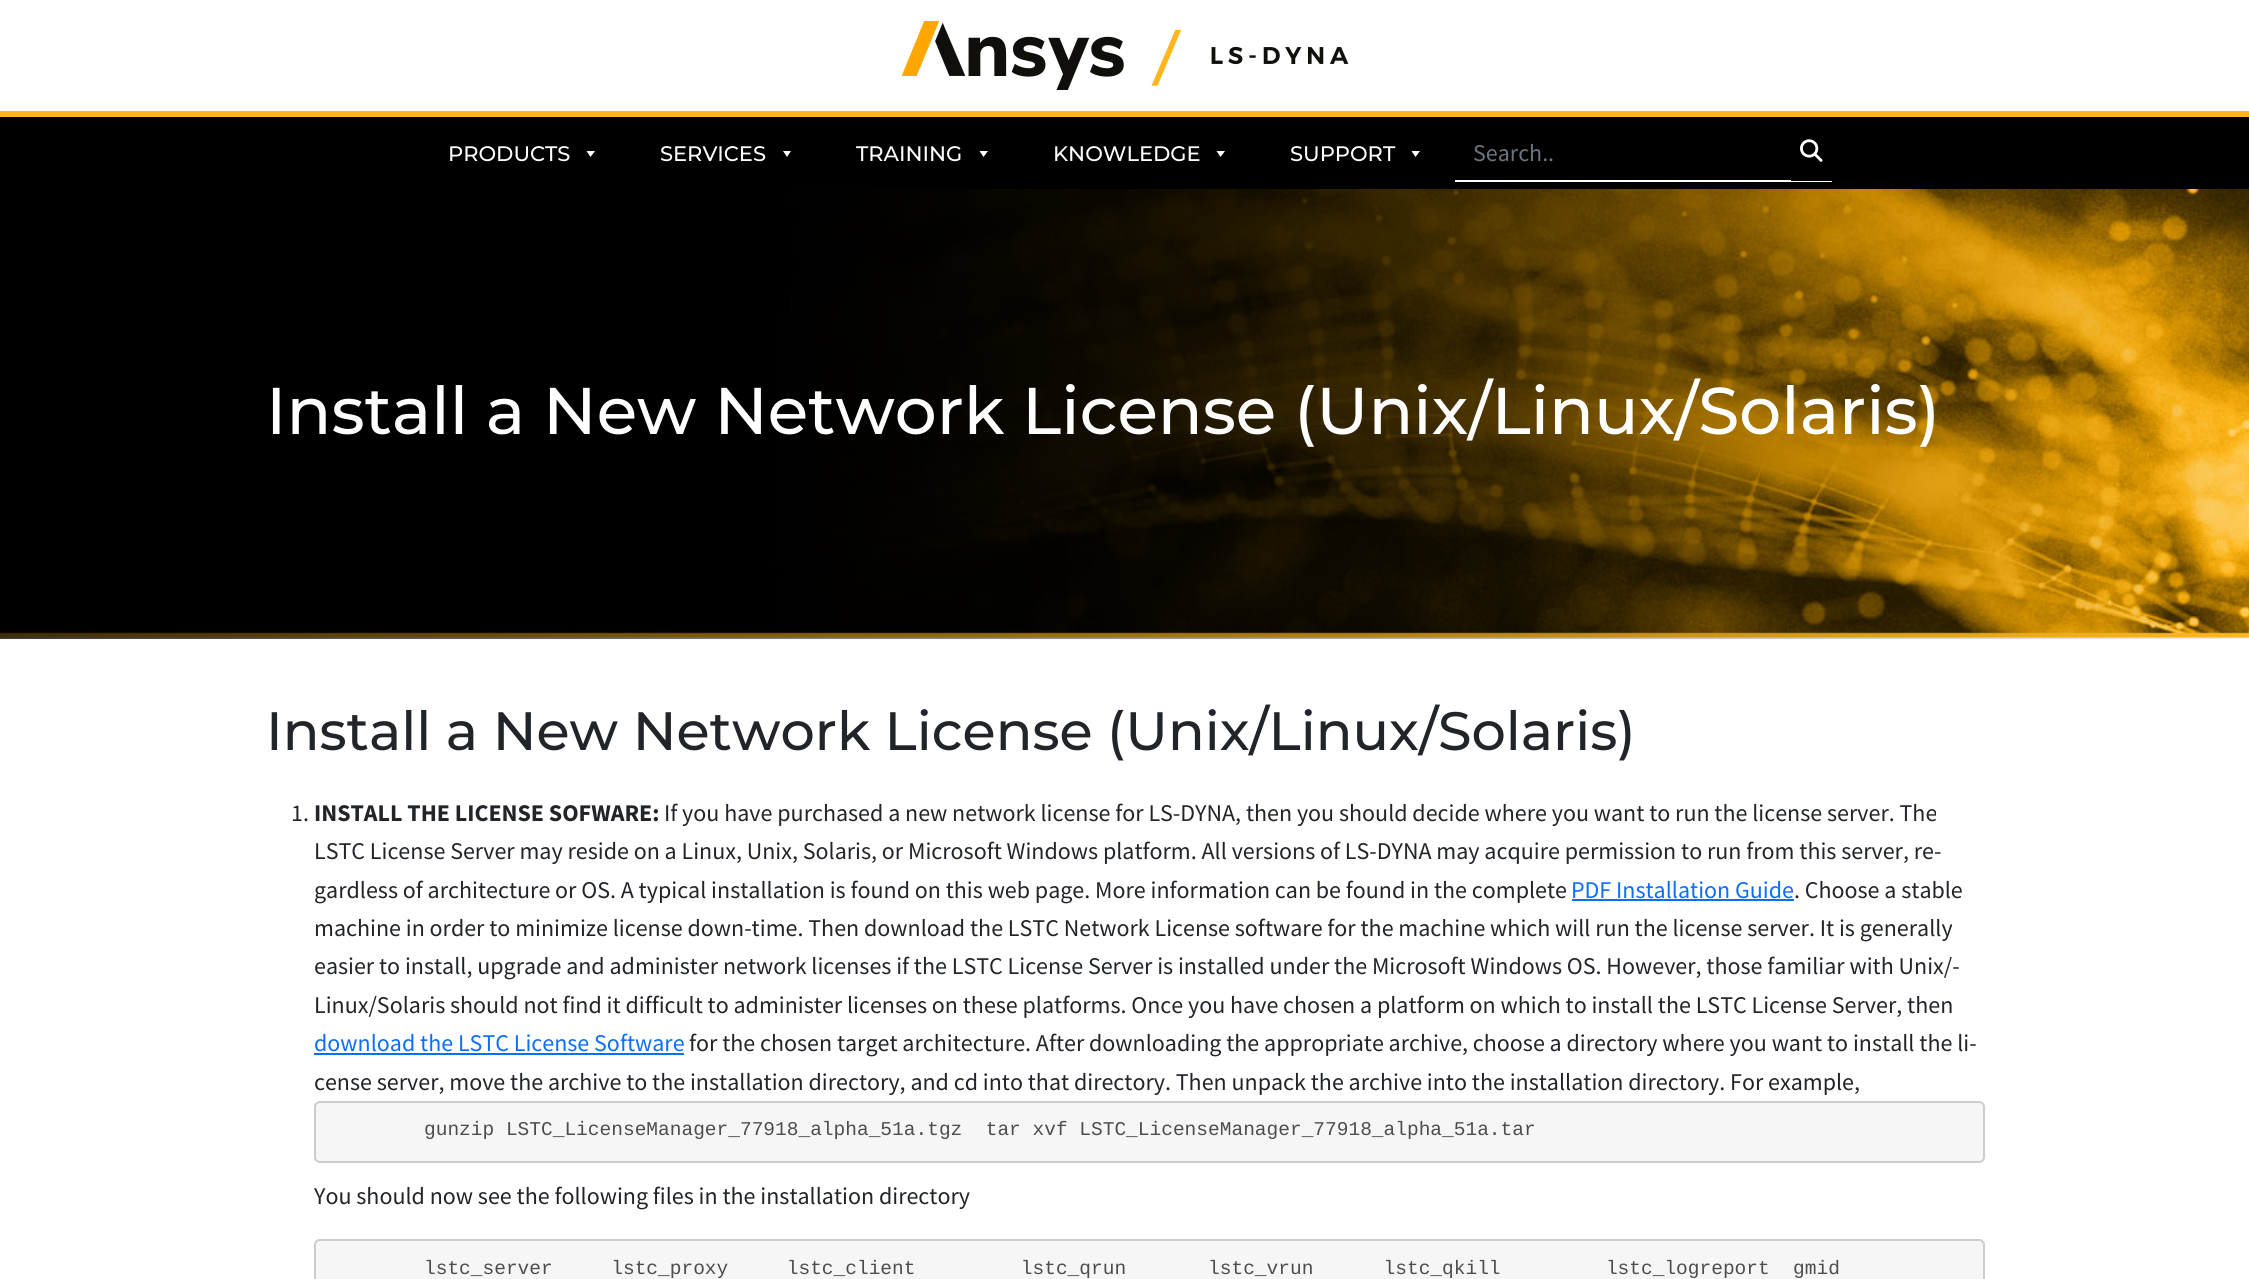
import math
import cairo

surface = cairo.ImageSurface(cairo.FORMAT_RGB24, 2249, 1279)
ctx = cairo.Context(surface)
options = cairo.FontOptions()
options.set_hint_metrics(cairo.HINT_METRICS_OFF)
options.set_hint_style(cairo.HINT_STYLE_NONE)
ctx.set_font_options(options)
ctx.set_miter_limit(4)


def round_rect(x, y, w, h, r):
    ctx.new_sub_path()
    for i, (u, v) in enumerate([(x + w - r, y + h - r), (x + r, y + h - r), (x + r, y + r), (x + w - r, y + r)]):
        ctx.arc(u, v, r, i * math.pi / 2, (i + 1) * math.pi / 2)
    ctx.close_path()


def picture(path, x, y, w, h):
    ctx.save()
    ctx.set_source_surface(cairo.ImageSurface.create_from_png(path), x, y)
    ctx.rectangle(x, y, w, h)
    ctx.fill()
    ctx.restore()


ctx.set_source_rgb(1, 1, 1)
ctx.paint()
picture("img1.png", 902, 21, 447, 69)
ctx.set_source_rgb(0, 0, 0)
ctx.rectangle(0, 117, 2249, 72)
ctx.fill()
ctx.set_source_rgb(1, 0.718, 0.106)
ctx.rectangle(0, 111, 2249, 6)
ctx.fill()
ctx.select_font_face("Montserrat Medium")
ctx.set_font_size(21)
ctx.set_source_rgb(1, 1, 1)
ctx.move_to(448, 161)
ctx.show_text("PRODUCTS")
ctx.new_path()
ctx.move_to(595, 151)
ctx.line_to(590.5, 157)
ctx.line_to(586.5, 151)
ctx.close_path()
ctx.fill()
ctx.move_to(660, 161)
ctx.show_text("SERVICES")
ctx.new_path()
ctx.move_to(791, 151)
ctx.line_to(787, 157)
ctx.line_to(783, 151)
ctx.close_path()
ctx.fill()
ctx.move_to(856, 161)
ctx.show_text("TRAINING")
ctx.new_path()
ctx.move_to(988, 151)
ctx.line_to(983.5, 157)
ctx.line_to(979.5, 151)
ctx.close_path()
ctx.fill()
ctx.move_to(1053, 161)
ctx.show_text("KNOWLEDGE")
ctx.new_path()
ctx.move_to(1225, 151)
ctx.line_to(1220.5, 157)
ctx.line_to(1216.5, 151)
ctx.close_path()
ctx.fill()
ctx.move_to(1290, 161)
ctx.show_text("SUPPORT")
ctx.new_path()
ctx.move_to(1420, 151)
ctx.line_to(1415.5, 157)
ctx.line_to(1411.5, 151)
ctx.close_path()
ctx.fill()
ctx.rectangle(1455, 180, 377, 2)
ctx.fill()
ctx.select_font_face("Source Sans Pro")
ctx.set_font_size(24)
ctx.set_source_rgb(0.424, 0.459, 0.49)
ctx.move_to(1473, 161)
ctx.show_text("Search..")
ctx.set_source_rgb(0, 0, 0)
ctx.rectangle(1791, 180, 41, 1)
ctx.fill()
picture("img2.png", 1800, 139, 23, 23)
picture("img3.png", 0, 189, 2249, 450)
ctx.select_font_face("Montserrat Medium")
ctx.set_font_size(66)
ctx.set_source_rgb(1, 1, 1)
ctx.move_to(266, 434)
ctx.show_text("Install a New Network License (Unix/Linux/Solaris)")
ctx.set_font_size(54)
ctx.set_source_rgb(0.129, 0.145, 0.161)
ctx.move_to(266, 750)
ctx.show_text("Install a New Network License (Unix/Linux/Solaris)")
ctx.select_font_face("Source Sans Pro")
ctx.set_font_size(24)
ctx.move_to(291, 821)
ctx.show_text("1.")
ctx.select_font_face("Source Sans Pro", cairo.FONT_SLANT_NORMAL, cairo.FONT_WEIGHT_BOLD)
ctx.move_to(314, 821)
ctx.show_text("INSTALL THE LICENSE SOFWARE:")
ctx.select_font_face("Source Sans Pro")
ctx.move_to(664, 821)
ctx.show_text("If you have purchased a new network license for LS-DYNA, then you should decide where you want to run the license server. The")
ctx.move_to(314, 859)
ctx.show_text("LSTC License Server may reside on a Linux, Unix, Solaris, or Microsoft Windows platform. All versions of LS-DYNA may acquire permission to run from this server, re-")
ctx.move_to(314, 898)
ctx.show_text("gardless of architecture or OS. A typical installation is found on this web page. More information can be found in the complete")
ctx.set_source_rgb(0.051, 0.431, 0.992)
ctx.move_to(1571, 898)
ctx.show_text("PDF Installation Guide")
ctx.rectangle(1572, 899, 222, 2)
ctx.fill()
ctx.set_source_rgb(0.129, 0.145, 0.161)
ctx.move_to(1794, 898)
ctx.show_text(". Choose a stable")
ctx.move_to(314, 936)
ctx.show_text("machine in order to minimize license down-time. Then download the LSTC Network License software for the machine which will run the license server. It is generally")
ctx.move_to(314, 974)
ctx.show_text("easier to install, upgrade and administer network licenses if the LSTC License Server is installed under the Microsoft Windows OS. However, those familiar with Unix/-")
ctx.move_to(314, 1013)
ctx.show_text("Linux/Solaris should not find it difficult to administer licenses on these platforms. Once you have chosen a platform on which to install the LSTC License Server, then")
ctx.set_source_rgb(0.051, 0.431, 0.992)
ctx.move_to(314, 1051)
ctx.show_text("download the LSTC License Software")
ctx.rectangle(314, 1053, 370, 2)
ctx.fill()
ctx.set_source_rgb(0.129, 0.145, 0.161)
ctx.move_to(689, 1051)
ctx.show_text("for the chosen target architecture. After downloading the appropriate archive, choose a directory where you want to install the li-")
ctx.move_to(314, 1090)
ctx.show_text("cense server, move the archive to the installation directory, and cd into that directory. Then unpack the archive into the installation directory. For example,")
ctx.set_source_rgb(0.961, 0.961, 0.961)
round_rect(315, 1102, 1669, 60, 5)
ctx.fill_preserve()
ctx.set_source_rgb(0.8, 0.8, 0.8)
ctx.stroke()
ctx.select_font_face("Liberation Mono")
ctx.set_font_size(19.5)
ctx.set_source_rgb(0.302, 0.302, 0.302)
ctx.move_to(424, 1135)
ctx.show_text("gunzip LSTC_LicenseManager_77918_alpha_51a.tgz  tar xvf LSTC_LicenseManager_77918_alpha_51a.tar")
ctx.select_font_face("Source Sans Pro")
ctx.set_font_size(24)
ctx.set_source_rgb(0.129, 0.145, 0.161)
ctx.move_to(314, 1204)
ctx.show_text("You should now see the following files in the installation directory")
ctx.set_source_rgb(0.961, 0.961, 0.961)
round_rect(315, 1240, 1669, 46, 5)
ctx.fill_preserve()
ctx.set_source_rgb(0.8, 0.8, 0.8)
ctx.stroke()
ctx.select_font_face("Liberation Mono")
ctx.set_font_size(19.5)
ctx.set_source_rgb(0.302, 0.302, 0.302)
ctx.move_to(424, 1274)
ctx.show_text("lstc_server     lstc_proxy     lstc_client         lstc_qrun       lstc_vrun      lstc_qkill         lstc_logreport  gmid")
surface.write_to_png("page.png")
